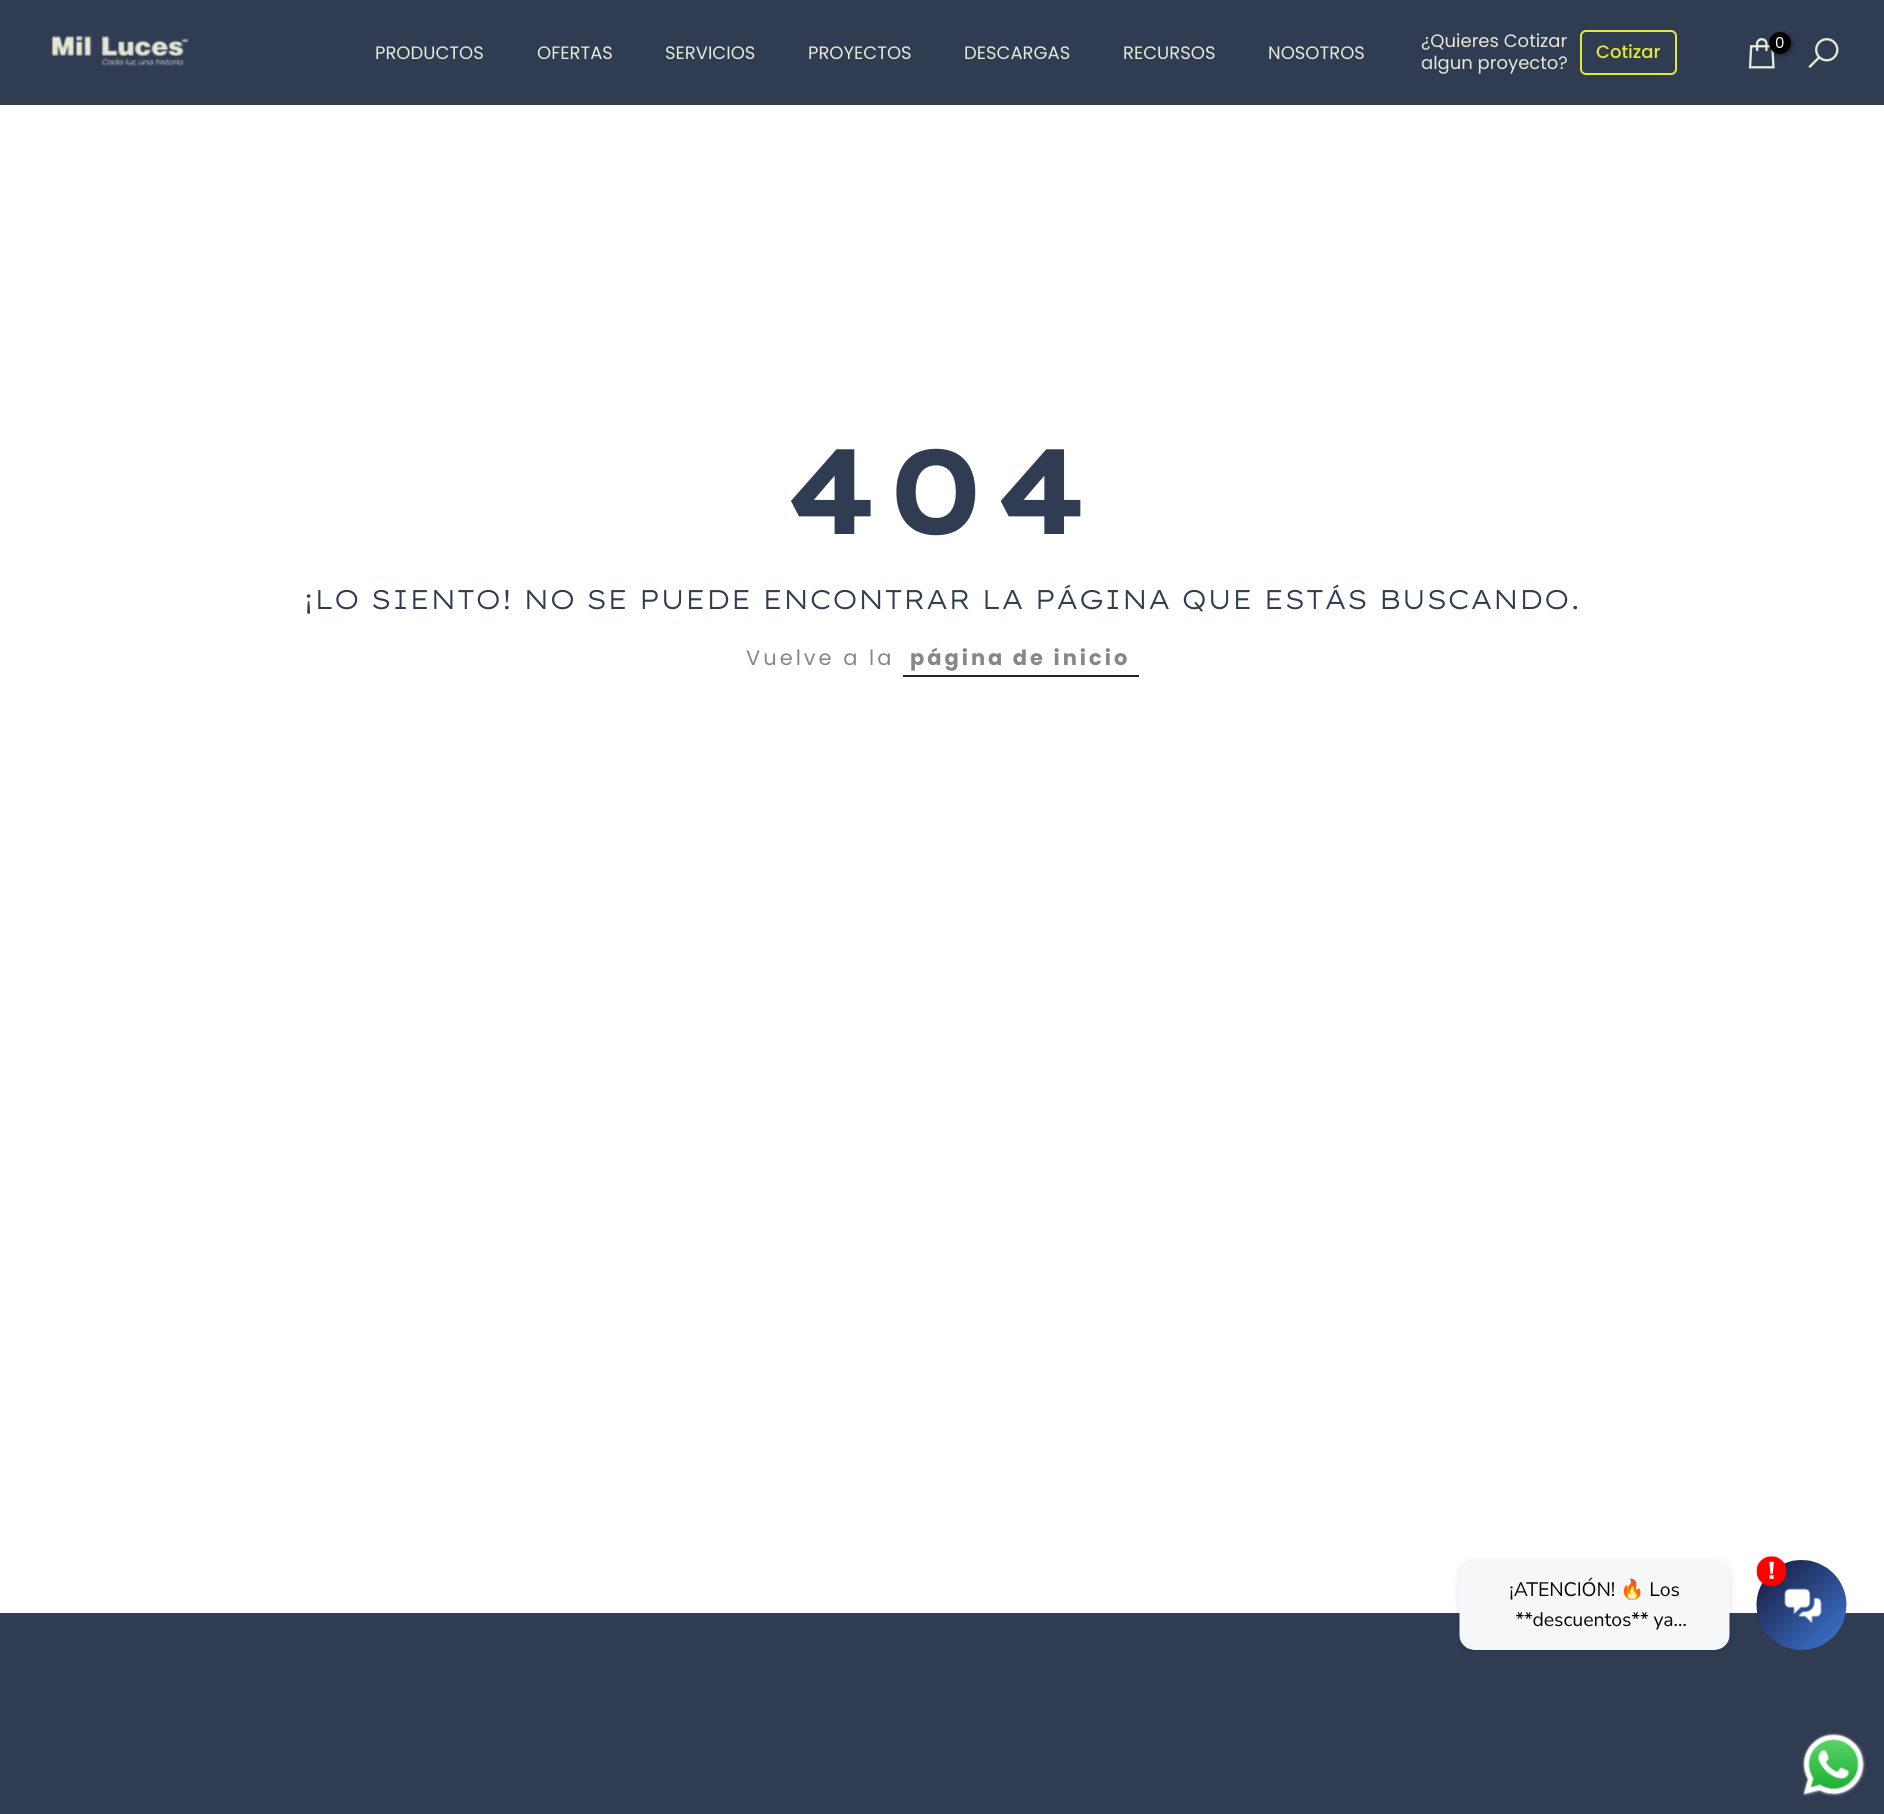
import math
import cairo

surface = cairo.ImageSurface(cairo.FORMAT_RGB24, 1884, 1814)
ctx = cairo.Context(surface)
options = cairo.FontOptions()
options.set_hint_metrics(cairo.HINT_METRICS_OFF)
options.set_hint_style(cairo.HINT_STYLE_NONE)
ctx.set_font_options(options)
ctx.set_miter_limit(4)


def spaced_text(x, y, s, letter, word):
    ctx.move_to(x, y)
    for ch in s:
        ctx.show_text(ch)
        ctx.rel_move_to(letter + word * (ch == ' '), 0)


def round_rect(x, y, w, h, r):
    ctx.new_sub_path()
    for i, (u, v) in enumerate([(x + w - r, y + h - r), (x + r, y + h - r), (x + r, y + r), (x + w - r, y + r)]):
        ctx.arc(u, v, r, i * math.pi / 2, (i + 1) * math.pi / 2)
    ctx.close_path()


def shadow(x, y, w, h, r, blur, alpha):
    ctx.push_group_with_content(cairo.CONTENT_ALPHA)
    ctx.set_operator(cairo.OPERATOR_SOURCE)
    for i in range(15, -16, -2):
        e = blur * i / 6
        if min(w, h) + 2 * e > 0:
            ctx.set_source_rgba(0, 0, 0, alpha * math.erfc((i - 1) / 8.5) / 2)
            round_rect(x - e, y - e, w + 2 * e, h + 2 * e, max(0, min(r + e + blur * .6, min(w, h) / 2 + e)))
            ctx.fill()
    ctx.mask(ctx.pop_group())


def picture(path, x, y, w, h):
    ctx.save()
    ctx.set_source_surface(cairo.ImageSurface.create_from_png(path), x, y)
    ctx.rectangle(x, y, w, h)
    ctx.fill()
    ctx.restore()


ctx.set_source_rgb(1, 1, 1)
ctx.paint()
ctx.set_source_rgb(0.184, 0.235, 0.322)
ctx.rectangle(0, 0, 1884, 105)
ctx.fill()
picture("img1.png", 51, 35, 138, 32)
ctx.select_font_face("Poppins")
ctx.set_font_size(18)
ctx.set_source_rgb(0.902, 0.91, 0.847)
ctx.move_to(1421, 47)
ctx.show_text("¿Quieres Cotizar")
ctx.move_to(1421, 69)
ctx.show_text("algun proyecto?")
round_rect(1581, 31, 95, 43, 5)
ctx.set_source_rgb(0.902, 0.91, 0.204)
ctx.stroke()
ctx.select_font_face("Poppins Medium")
ctx.move_to(1596, 58)
ctx.show_text("Cotizar")
picture("img2.png", 1748, 38, 27, 31)
ctx.set_source_rgb(0, 0, 0)
shadow(1770, 33, 23, 23, 11.5, 2, 0.3)
ctx.set_source_rgb(0, 0, 0)
ctx.arc(1780, 43, 11, 0, 2 * math.pi)
ctx.fill()
ctx.select_font_face("Poppins")
ctx.set_font_size(15)
ctx.set_source_rgb(1, 1, 1)
ctx.move_to(1775, 48)
ctx.show_text("0")
picture("img3.png", 1808, 38, 31, 30)
ctx.set_font_size(18)
ctx.set_source_rgb(0.902, 0.91, 0.847)
ctx.move_to(375, 59)
ctx.show_text("PRODUCTOS")
ctx.move_to(537, 59)
ctx.show_text("OFERTAS")
ctx.move_to(665, 59)
ctx.show_text("SERVICIOS")
ctx.move_to(808, 59)
ctx.show_text("PROYECTOS")
ctx.move_to(964, 59)
ctx.show_text("DESCARGAS")
ctx.move_to(1123, 59)
ctx.show_text("RECURSOS")
ctx.move_to(1268, 59)
ctx.show_text("NOSOTROS")
ctx.select_font_face("Lexend Giga", cairo.FONT_SLANT_NORMAL, cairo.FONT_WEIGHT_BOLD)
ctx.set_font_size(120)
ctx.set_source_rgb(0.184, 0.235, 0.322)
spaced_text(786, 534, "404", 12, 0)
ctx.select_font_face("Lexend Giga Light")
ctx.set_font_size(27)
ctx.move_to(303, 609)
ctx.show_text("¡LO SIENTO! NO SE PUEDE ENCONTRAR LA PÁGINA QUE ESTÁS BUSCANDO.")
ctx.select_font_face("Poppins")
ctx.set_font_size(21)
ctx.set_source_rgb(0.529, 0.529, 0.529)
spaced_text(746, 665, "Vuelve a la", 3, 0)
ctx.select_font_face("Poppins", cairo.FONT_SLANT_NORMAL, cairo.FONT_WEIGHT_BOLD)
spaced_text(910, 665, "página de inicio", 3, 0)
ctx.set_source_rgb(0.133, 0.133, 0.133)
ctx.rectangle(903, 675, 236, 2)
ctx.fill()
ctx.set_source_rgb(0.184, 0.235, 0.322)
ctx.rectangle(0, 1613, 1884, 201)
ctx.fill()
picture("img4.png", 1455, 1555, 392, 96)
picture("img5.png", 1802, 1732, 64, 65)
surface.write_to_png("page.png")
